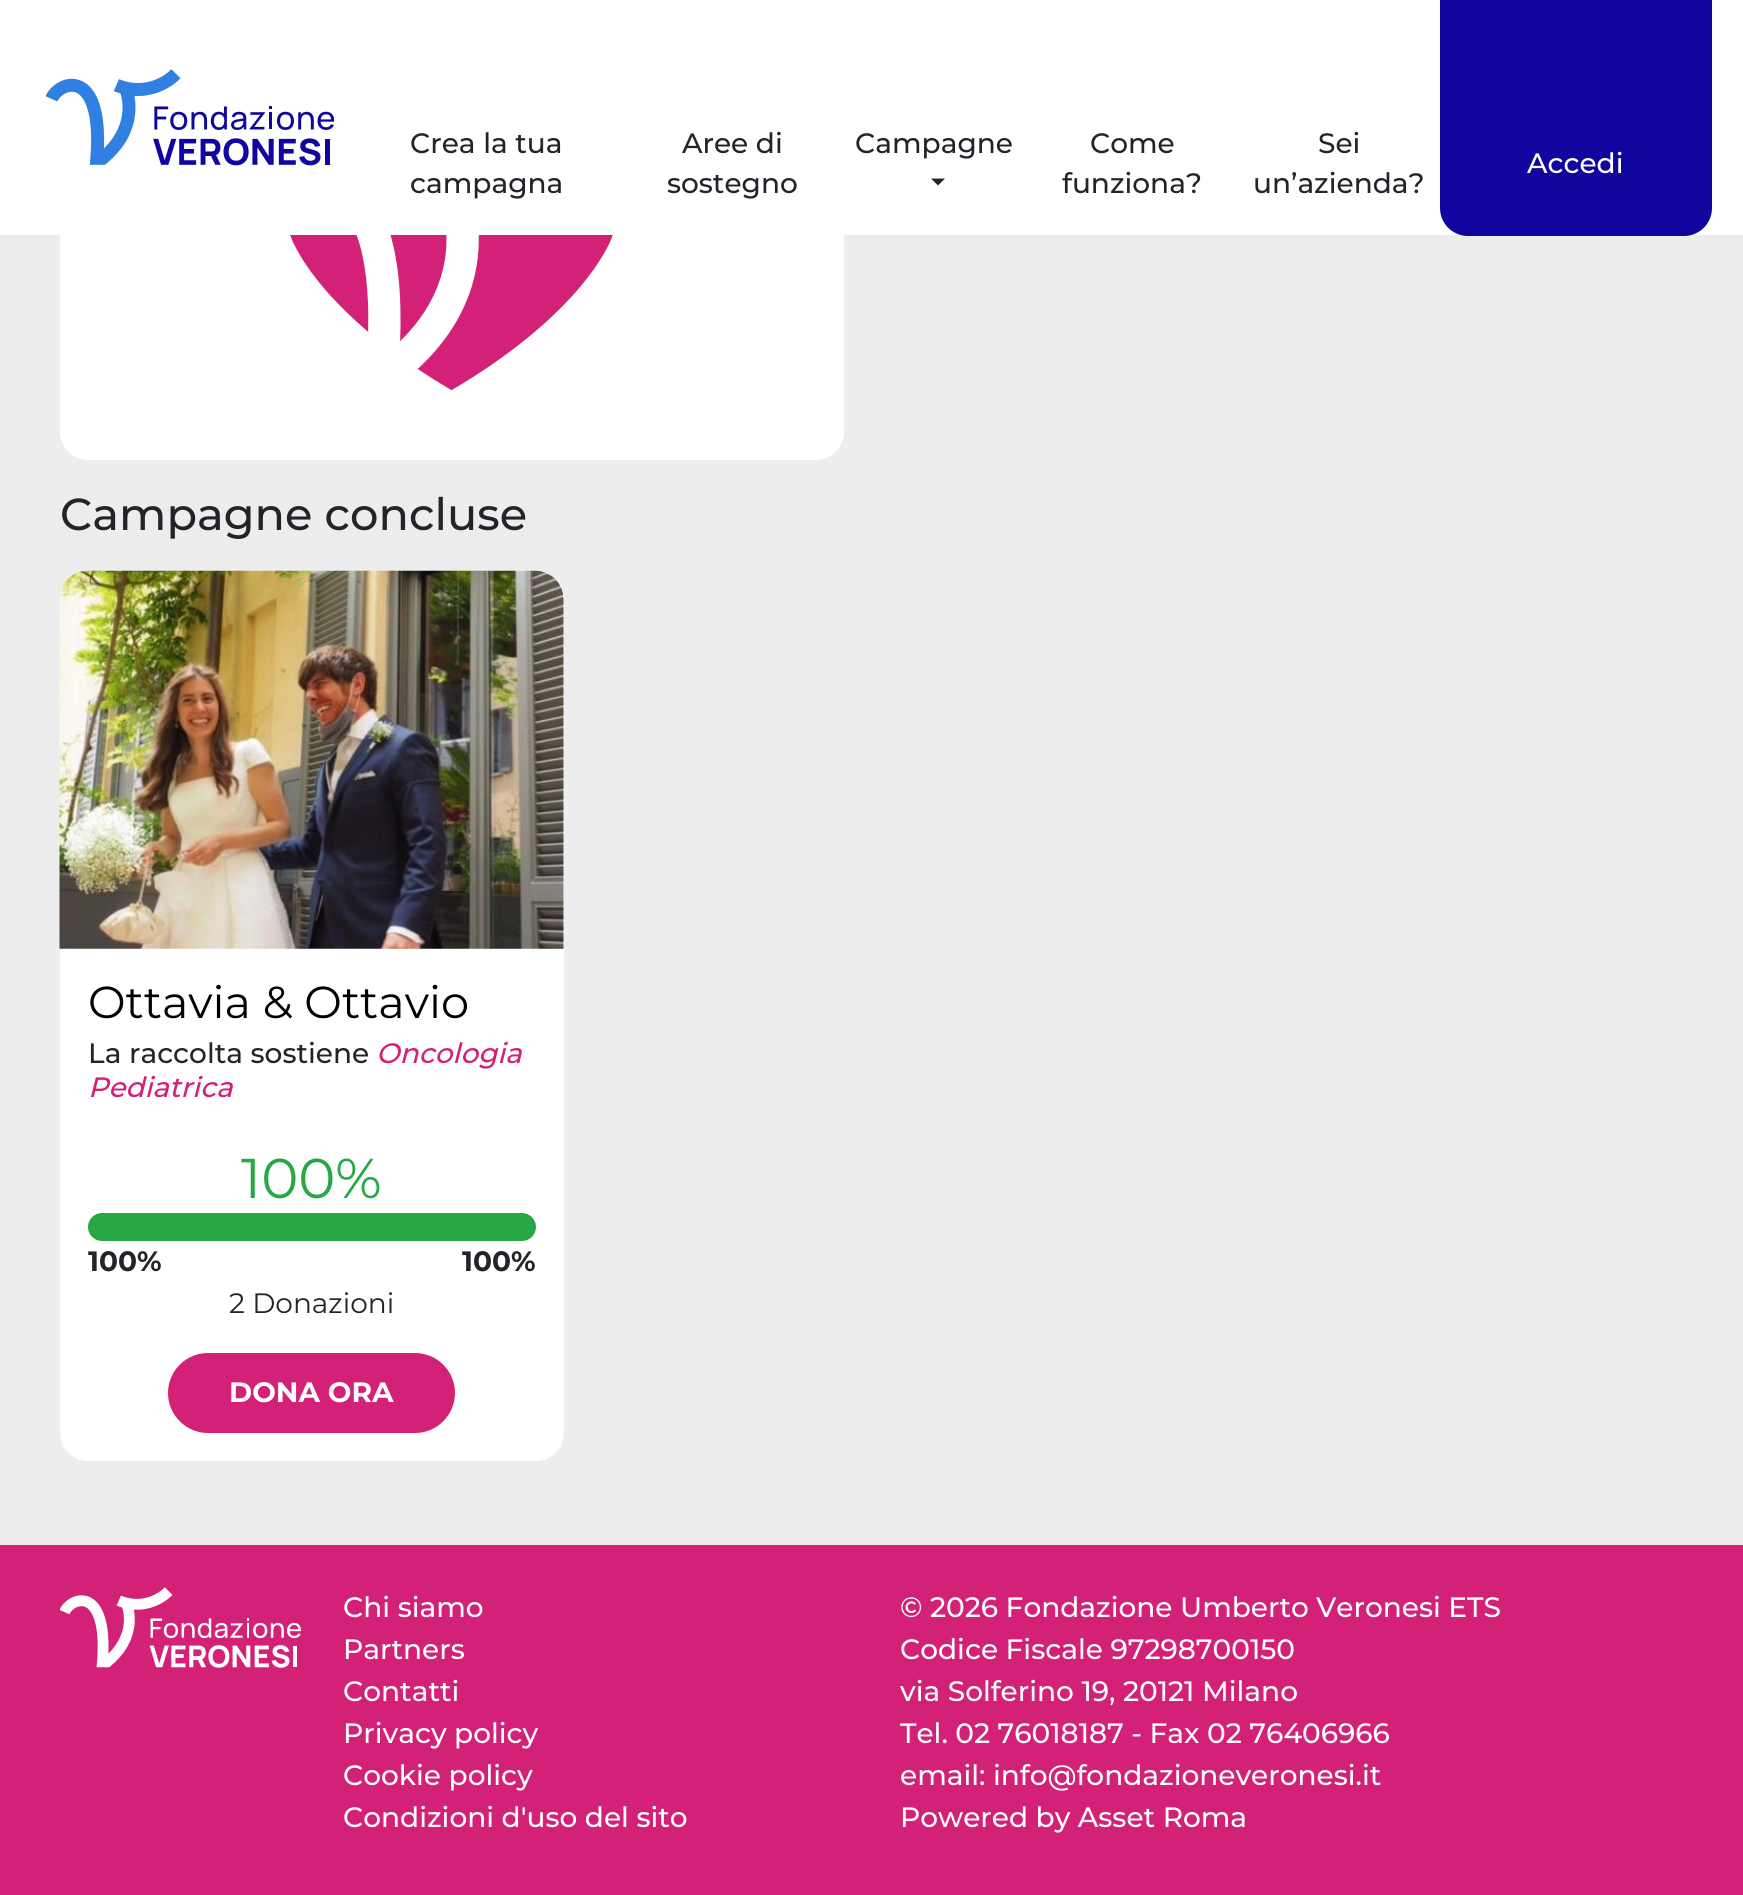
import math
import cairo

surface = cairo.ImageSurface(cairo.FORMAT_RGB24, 1743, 1895)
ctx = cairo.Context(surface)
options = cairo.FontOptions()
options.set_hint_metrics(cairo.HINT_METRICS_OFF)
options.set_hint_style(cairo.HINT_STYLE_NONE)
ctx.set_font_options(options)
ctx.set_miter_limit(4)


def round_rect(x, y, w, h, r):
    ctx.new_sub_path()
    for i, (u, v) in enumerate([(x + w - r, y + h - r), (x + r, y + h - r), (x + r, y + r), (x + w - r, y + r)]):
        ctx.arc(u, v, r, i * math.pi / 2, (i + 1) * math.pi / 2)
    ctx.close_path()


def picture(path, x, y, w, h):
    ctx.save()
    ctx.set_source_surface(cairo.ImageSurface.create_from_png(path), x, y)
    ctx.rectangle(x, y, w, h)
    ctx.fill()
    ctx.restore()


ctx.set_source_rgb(0.922, 0.929, 0.925)
ctx.paint()
ctx.set_source_rgb(1, 1, 1)
round_rect(60, 19, 784, 441, 28)
ctx.fill()
ctx.rectangle(0, 0, 1743, 235)
ctx.fill()
picture("img1.png", 46, 69, 288, 97)
ctx.select_font_face("Montserrat Medium")
ctx.set_font_size(28)
ctx.set_source_rgb(0.129, 0.145, 0.161)
ctx.move_to(410, 153)
ctx.show_text("Crea la tua")
ctx.move_to(410, 193)
ctx.show_text("campagna")
ctx.move_to(682, 153)
ctx.show_text("Aree di")
ctx.move_to(667, 193)
ctx.show_text("sostegno")
ctx.move_to(855, 153)
ctx.show_text("Campagne")
ctx.new_path()
ctx.move_to(931, 178.5)
ctx.line_to(945, 178.5)
ctx.line_to(938, 185.5)
ctx.close_path()
ctx.fill()
ctx.move_to(1090, 153)
ctx.show_text("Come")
ctx.move_to(1062, 193)
ctx.show_text("funziona?")
ctx.move_to(1318, 153)
ctx.show_text("Sei")
ctx.move_to(1253, 193)
ctx.show_text("un’azienda?")
ctx.set_source_rgb(0.063, 0.024, 0.624)
ctx.new_path()
ctx.move_to(1440, -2)
ctx.line_to(1712, -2)
ctx.line_to(1712, 208)
ctx.curve_to(1712, 223.5, 1699.5, 236, 1684, 236)
ctx.line_to(1468, 236)
ctx.curve_to(1452.5, 236, 1440, 223.5, 1440, 208)
ctx.close_path()
ctx.fill()
ctx.set_source_rgb(1, 1, 1)
ctx.move_to(1527, 173)
ctx.show_text("Accedi")
picture("img2.png", 290, 235, 323, 156)
ctx.set_font_size(44.75)
ctx.set_source_rgb(0.129, 0.145, 0.161)
ctx.move_to(60, 530)
ctx.show_text("Campagne concluse")
ctx.set_source_rgb(1, 1, 1)
round_rect(60, 571, 504, 890, 28)
ctx.fill()
ctx.new_path()
ctx.move_to(88, 571)
ctx.line_to(536, 571)
ctx.curve_to(551.5, 571, 564, 583.5, 564, 599)
ctx.line_to(564, 949)
ctx.line_to(60, 949)
ctx.line_to(60, 599)
ctx.curve_to(60, 583.5, 72.5, 571, 88, 571)
ctx.close_path()
ctx.fill()
picture("img3.png", 59, 570, 505, 379)
ctx.select_font_face("Montserrat")
ctx.set_source_rgb(0, 0, 0)
ctx.move_to(88, 1018)
ctx.show_text("Ottavia & Ottavio")
ctx.select_font_face("Montserrat Medium")
ctx.set_font_size(28)
ctx.set_source_rgb(0.129, 0.145, 0.161)
ctx.move_to(88, 1063)
ctx.show_text("La raccolta sostiene")
ctx.select_font_face("Montserrat Medium", cairo.FONT_SLANT_ITALIC)
ctx.set_source_rgb(0.824, 0.129, 0.463)
ctx.move_to(376, 1063)
ctx.show_text("Oncologia")
ctx.move_to(88, 1097)
ctx.show_text("Pediatrica")
ctx.select_font_face("Montserrat")
ctx.set_font_size(56)
ctx.set_source_rgb(0.157, 0.655, 0.271)
ctx.move_to(241, 1198)
ctx.show_text("100%")
round_rect(88, 1213, 448, 28, 14)
ctx.fill()
ctx.select_font_face("Montserrat", cairo.FONT_SLANT_NORMAL, cairo.FONT_WEIGHT_BOLD)
ctx.set_font_size(28)
ctx.set_source_rgb(0.129, 0.145, 0.161)
ctx.move_to(88, 1271)
ctx.show_text("100%")
ctx.move_to(462, 1271)
ctx.show_text("100%")
ctx.select_font_face("Montserrat")
ctx.move_to(229, 1313)
ctx.show_text("2 Donazioni")
ctx.set_source_rgb(0.824, 0.129, 0.463)
round_rect(170.5, 1355.5, 282, 75, 37.5)
ctx.fill_preserve()
ctx.set_line_width(5)
ctx.stroke()
ctx.select_font_face("Montserrat", cairo.FONT_SLANT_NORMAL, cairo.FONT_WEIGHT_BOLD)
ctx.set_source_rgb(1, 1, 1)
ctx.move_to(229, 1402)
ctx.show_text("DONA ORA")
ctx.set_source_rgb(0.824, 0.129, 0.463)
ctx.rectangle(0, 1545, 1743, 350)
ctx.fill()
picture("img4.png", 60, 1587, 241, 81)
ctx.select_font_face("Montserrat Medium")
ctx.set_source_rgb(1, 1, 1)
ctx.move_to(343, 1617)
ctx.show_text("Chi siamo")
ctx.move_to(343, 1659)
ctx.show_text("Partners")
ctx.move_to(343, 1701)
ctx.show_text("Contatti")
ctx.move_to(343, 1743)
ctx.show_text("Privacy policy")
ctx.move_to(343, 1785)
ctx.show_text("Cookie policy")
ctx.move_to(343, 1827)
ctx.show_text("Condizioni d'uso del sito")
ctx.move_to(900, 1617)
ctx.show_text("© 2026 Fondazione Umberto Veronesi ETS")
ctx.move_to(900, 1659)
ctx.show_text("Codice Fiscale 97298700150")
ctx.move_to(900, 1701)
ctx.show_text("via Solferino 19, 20121 Milano")
ctx.move_to(900, 1743)
ctx.show_text("Tel. 02 76018187 - Fax 02 76406966")
ctx.move_to(900, 1785)
ctx.show_text("email: info@fondazioneveronesi.it")
ctx.move_to(900, 1827)
ctx.show_text("Powered by Asset Roma")
surface.write_to_png("page.png")
